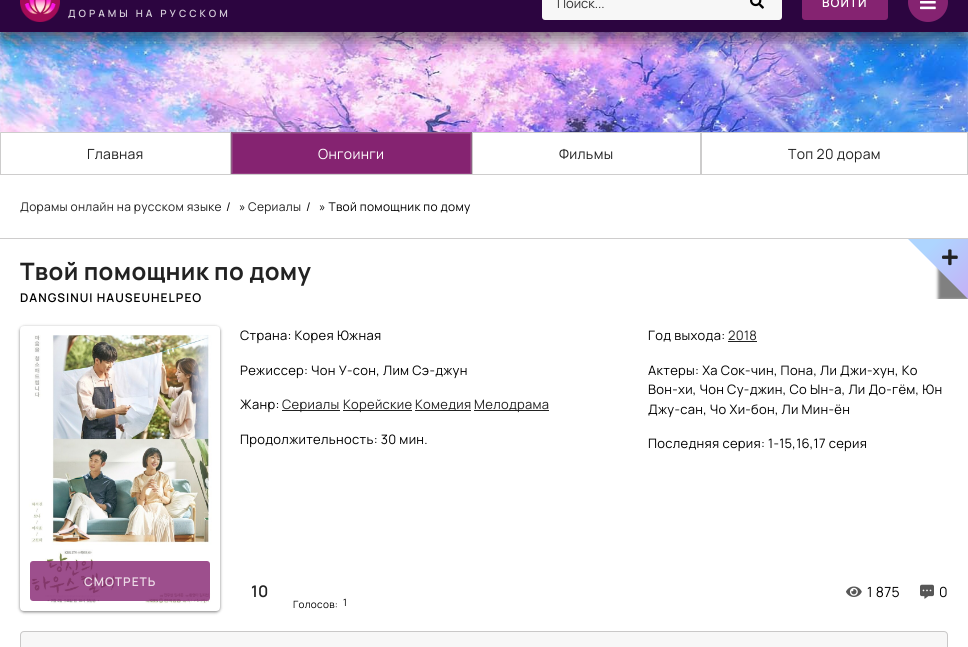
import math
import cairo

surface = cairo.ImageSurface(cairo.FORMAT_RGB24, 968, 647)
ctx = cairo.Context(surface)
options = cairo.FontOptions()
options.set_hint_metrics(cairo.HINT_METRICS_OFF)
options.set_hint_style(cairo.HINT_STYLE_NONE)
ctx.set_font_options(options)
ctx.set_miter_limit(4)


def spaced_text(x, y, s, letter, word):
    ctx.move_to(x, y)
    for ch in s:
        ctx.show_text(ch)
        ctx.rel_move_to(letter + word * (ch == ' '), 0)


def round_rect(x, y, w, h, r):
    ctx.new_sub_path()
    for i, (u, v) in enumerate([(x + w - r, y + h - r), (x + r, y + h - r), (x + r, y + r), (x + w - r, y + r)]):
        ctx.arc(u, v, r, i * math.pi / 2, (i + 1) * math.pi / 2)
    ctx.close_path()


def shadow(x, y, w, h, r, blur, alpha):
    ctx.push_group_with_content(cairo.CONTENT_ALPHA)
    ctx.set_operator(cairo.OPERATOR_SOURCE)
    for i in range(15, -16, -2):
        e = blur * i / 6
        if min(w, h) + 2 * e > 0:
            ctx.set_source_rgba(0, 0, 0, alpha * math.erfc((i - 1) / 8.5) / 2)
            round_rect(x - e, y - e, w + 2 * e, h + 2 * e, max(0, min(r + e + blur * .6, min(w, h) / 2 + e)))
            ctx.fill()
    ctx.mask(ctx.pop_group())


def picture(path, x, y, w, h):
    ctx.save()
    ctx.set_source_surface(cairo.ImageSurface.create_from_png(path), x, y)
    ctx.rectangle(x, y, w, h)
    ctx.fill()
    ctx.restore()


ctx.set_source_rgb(1, 1, 1)
ctx.paint()
picture("img1.png", 0, 32, 968, 100)
ctx.set_source_rgb(0, 0, 0)
shadow(0, -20, 968, 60, 0, 8, 0.5)
ctx.set_source_rgb(0.173, 0.02, 0.251)
ctx.rectangle(0, 0, 968, 32)
ctx.fill()
ctx.set_source_rgb(0.965, 0.965, 0.965)
round_rect(542, -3, 240, 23, 3)
ctx.fill()
ctx.select_font_face("Manrope ExtraLight")
ctx.set_font_size(13)
ctx.set_source_rgb(0.192, 0.192, 0.192)
ctx.move_to(557, 8)
ctx.show_text("Поиск...")
picture("img2.png", 750, 0, 14, 9)
ctx.set_source_rgb(0.522, 0.137, 0.443)
round_rect(802, -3, 86, 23, 3)
ctx.fill()
ctx.select_font_face("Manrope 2 ExtraLight")
ctx.set_font_size(12)
ctx.set_source_rgb(1, 1, 1)
spaced_text(822, 7, "ВОЙТИ", 1, 0)
ctx.set_source_rgb(0.522, 0.137, 0.443)
ctx.new_path()
ctx.arc(928, 2, 20, 0, 2 * math.pi)
ctx.fill()
picture("img3.png", 920, 1, 16, 9)
picture("img4.png", 20, 0, 40, 22)
ctx.set_font_size(10)
ctx.set_source_rgb(0.835, 0.804, 0.851)
spaced_text(68, 17, "ДОРАМЫ НА РУССКОМ", 3, 0)
ctx.set_source_rgb(0.808, 0.804, 0.804)
ctx.new_path()
ctx.move_to(0, 132)
ctx.line_to(231, 132)
ctx.line_to(230, 133)
ctx.line_to(1, 133)
ctx.close_path()
ctx.fill()
ctx.set_source_rgba(0.616, 0.604, 0.604, 0.5)
ctx.new_path()
ctx.move_to(231, 132)
ctx.line_to(231, 174)
ctx.line_to(230, 174)
ctx.line_to(230, 133)
ctx.close_path()
ctx.fill()
ctx.new_path()
ctx.move_to(0, 174)
ctx.line_to(0, 132)
ctx.line_to(1, 133)
ctx.line_to(1, 174)
ctx.close_path()
ctx.fill()
ctx.select_font_face("Manrope ExtraLight")
ctx.set_font_size(14)
ctx.set_source_rgb(0.133, 0.133, 0.133)
spaced_text(87, 159, "Главная", 0.3, 0)
ctx.set_source_rgb(0.522, 0.137, 0.443)
ctx.rectangle(231, 132, 241, 42)
ctx.fill()
ctx.rectangle(232.5, 133.5, 238, 40)
ctx.set_source_rgb(0.58, 0.247, 0.514)
ctx.set_line_width(1)
ctx.stroke()
ctx.set_source_rgb(0.569, 0.373, 0.525)
ctx.new_path()
ctx.move_to(231, 132)
ctx.line_to(472, 132)
ctx.line_to(471, 133)
ctx.line_to(232, 133)
ctx.close_path()
ctx.fill()
ctx.set_source_rgba(0.616, 0.604, 0.604, 0.5)
ctx.new_path()
ctx.move_to(472, 132)
ctx.line_to(472, 174)
ctx.line_to(471, 174)
ctx.line_to(471, 133)
ctx.close_path()
ctx.fill()
ctx.new_path()
ctx.move_to(231, 174)
ctx.line_to(231, 132)
ctx.line_to(232, 133)
ctx.line_to(232, 174)
ctx.close_path()
ctx.fill()
ctx.set_source_rgb(1, 1, 1)
spaced_text(318, 159, "Онгоинги", 0.3, 0)
ctx.set_source_rgb(0.808, 0.804, 0.804)
ctx.new_path()
ctx.move_to(472, 132)
ctx.line_to(701, 132)
ctx.line_to(700, 133)
ctx.line_to(473, 133)
ctx.close_path()
ctx.fill()
ctx.set_source_rgba(0.616, 0.604, 0.604, 0.5)
ctx.new_path()
ctx.move_to(701, 132)
ctx.line_to(701, 174)
ctx.line_to(700, 174)
ctx.line_to(700, 133)
ctx.close_path()
ctx.fill()
ctx.new_path()
ctx.move_to(472, 174)
ctx.line_to(472, 132)
ctx.line_to(473, 133)
ctx.line_to(473, 174)
ctx.close_path()
ctx.fill()
ctx.set_source_rgb(0.133, 0.133, 0.133)
spaced_text(559, 159, "Фильмы", 0.3, 0)
ctx.set_source_rgb(0.808, 0.804, 0.804)
ctx.new_path()
ctx.move_to(701, 132)
ctx.line_to(968, 132)
ctx.line_to(967, 133)
ctx.line_to(702, 133)
ctx.close_path()
ctx.fill()
ctx.set_source_rgba(0.616, 0.604, 0.604, 0.5)
ctx.new_path()
ctx.move_to(968, 132)
ctx.line_to(968, 174)
ctx.line_to(967, 174)
ctx.line_to(967, 133)
ctx.close_path()
ctx.fill()
ctx.new_path()
ctx.move_to(701, 174)
ctx.line_to(701, 132)
ctx.line_to(702, 133)
ctx.line_to(702, 174)
ctx.close_path()
ctx.fill()
ctx.set_source_rgb(0.133, 0.133, 0.133)
spaced_text(788, 159, "Топ 20 дорам", 0.3, 0)
ctx.set_source_rgb(0.808, 0.804, 0.804)
ctx.rectangle(0, 174, 968, 1)
ctx.fill()
ctx.set_font_size(12)
ctx.set_source_rgb(0.133, 0.133, 0.133)
spaced_text(20, 211, "Дорамы онлайн на русском языке", 0.3, 0)
ctx.set_source_rgb(0, 0, 0)
spaced_text(226, 211, "/", 0.3, 0)
spaced_text(239, 211, "»", 0.3, 0)
ctx.set_source_rgb(0.133, 0.133, 0.133)
spaced_text(248, 211, "Сериалы", 0.3, 0)
ctx.set_source_rgb(0, 0, 0)
spaced_text(306, 211, "/", 0.3, 0)
spaced_text(319, 211, "» Твой помощник по дому", 0.3, 0)
ctx.set_source_rgb(0.808, 0.804, 0.804)
ctx.rectangle(0, 238, 968, 1)
ctx.fill()
ctx.select_font_face("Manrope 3 ExtraLight")
ctx.set_font_size(24)
ctx.set_source_rgb(0.133, 0.133, 0.133)
spaced_text(20, 280, "Твой помощник по дому", 0.3, 0)
ctx.select_font_face("Manrope 2 ExtraLight")
ctx.set_font_size(12)
ctx.set_source_rgb(0, 0, 0)
spaced_text(20, 302, "DANGSINUI HAUSEUHELPEO", 1, 0)
ctx.save()
ctx.rectangle(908, 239, 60, 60)
ctx.clip()
ctx.set_source_rgb(0, 0, 0)
shadow(938, 240, 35, 60, 0, 1.5, 0.5)
ctx.restore()
gradient = cairo.LinearGradient(938, 239, 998, 299)
gradient.add_color_stop_rgba(0, 0.682, 0.835, 1, 1)
gradient.add_color_stop_rgba(1, 0.804, 0.643, 0.953, 1)
ctx.set_source(gradient)
ctx.new_path()
ctx.move_to(908, 239)
ctx.line_to(968, 239)
ctx.line_to(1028, 299)
ctx.line_to(968, 299)
ctx.close_path()
ctx.fill()
picture("img5.png", 942, 249, 16, 17)
ctx.select_font_face("Manrope ExtraLight")
ctx.set_font_size(13)
ctx.set_source_rgb(0, 0, 0)
spaced_text(240, 340, "Страна: Корея Южная", 0.3, 0)
spaced_text(240, 375, "Режиссер: Чон У-сон, Лим Сэ-джун", 0.3, 0)
spaced_text(240, 409, "Жанр:", 0.3, 0)
ctx.set_source_rgb(0.133, 0.133, 0.133)
ctx.rectangle(282, 410, 58, 1)
ctx.fill()
spaced_text(282, 409, "Сериалы", 0.3, 0)
ctx.rectangle(343, 410, 69, 1)
ctx.fill()
spaced_text(343, 409, "Корейские", 0.3, 0)
ctx.rectangle(415, 410, 56, 1)
ctx.fill()
spaced_text(415, 409, "Комедия", 0.3, 0)
ctx.rectangle(474, 410, 75, 1)
ctx.fill()
spaced_text(474, 409, "Мелодрама", 0.3, 0)
ctx.set_source_rgb(0, 0, 0)
spaced_text(240, 444, "Продолжительность: 30 мин.", 0.3, 0)
ctx.select_font_face("Manrope 2 ExtraLight")
ctx.set_font_size(16)
ctx.set_source_rgb(0.133, 0.133, 0.133)
spaced_text(251, 597, "10", 0.3, 0)
ctx.select_font_face("Manrope ExtraLight")
ctx.set_font_size(10)
ctx.set_source_rgb(0, 0, 0)
spaced_text(293, 608, "Голосов:", 0.3, 0)
spaced_text(343, 606, "1", 0.3, 0)
picture("img6.png", 846, 586, 16, 11)
ctx.set_font_size(14)
spaced_text(867, 597, "1 875", 0.3, 0)
picture("img7.png", 920, 584, 14, 15)
spaced_text(939, 597, "0", 0.3, 0)
ctx.set_font_size(13)
spaced_text(648, 340, "Год выхода:", 0.3, 0)
ctx.set_source_rgb(0.133, 0.133, 0.133)
spaced_text(728, 340, "2018", 0.3, 0)
ctx.rectangle(728, 341, 29, 1)
ctx.fill()
ctx.set_source_rgb(0, 0, 0)
spaced_text(648, 375, "Актеры: Ха Сок-чин, Пона, Ли Джи-хун, Ко", 0.3, 0)
spaced_text(648, 394, "Вон-хи, Чон Су-джин, Со Ын-а, Ли До-гём, Юн", 0.3, 0)
spaced_text(648, 414, "Джу-сан, Чо Хи-бон, Ли Мин-ён", 0.3, 0)
spaced_text(648, 448, "Последняя серия: 1-15,16,17 серия", 0.3, 0)
ctx.set_source_rgb(0, 0, 0)
shadow(20, 327, 200, 285, 4, 1.5, 0.5)
picture("img8.png", 20, 326, 200, 285)
ctx.set_source_rgba(0.522, 0.137, 0.443, 0.8)
round_rect(30, 561, 180, 40, 3)
ctx.fill()
ctx.select_font_face("Manrope 2 ExtraLight")
ctx.set_font_size(12)
ctx.set_source_rgb(0.922, 0.859, 0.906)
spaced_text(84, 586, "СМОТРЕТЬ", 1, 0)
ctx.set_source_rgb(0.965, 0.965, 0.965)
round_rect(20, 631, 928, 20, 4)
ctx.fill()
round_rect(20.5, 631.5, 927, 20, 3.5)
ctx.set_source_rgba(0.616, 0.604, 0.604, 0.5)
ctx.stroke()
surface.write_to_png("page.png")
